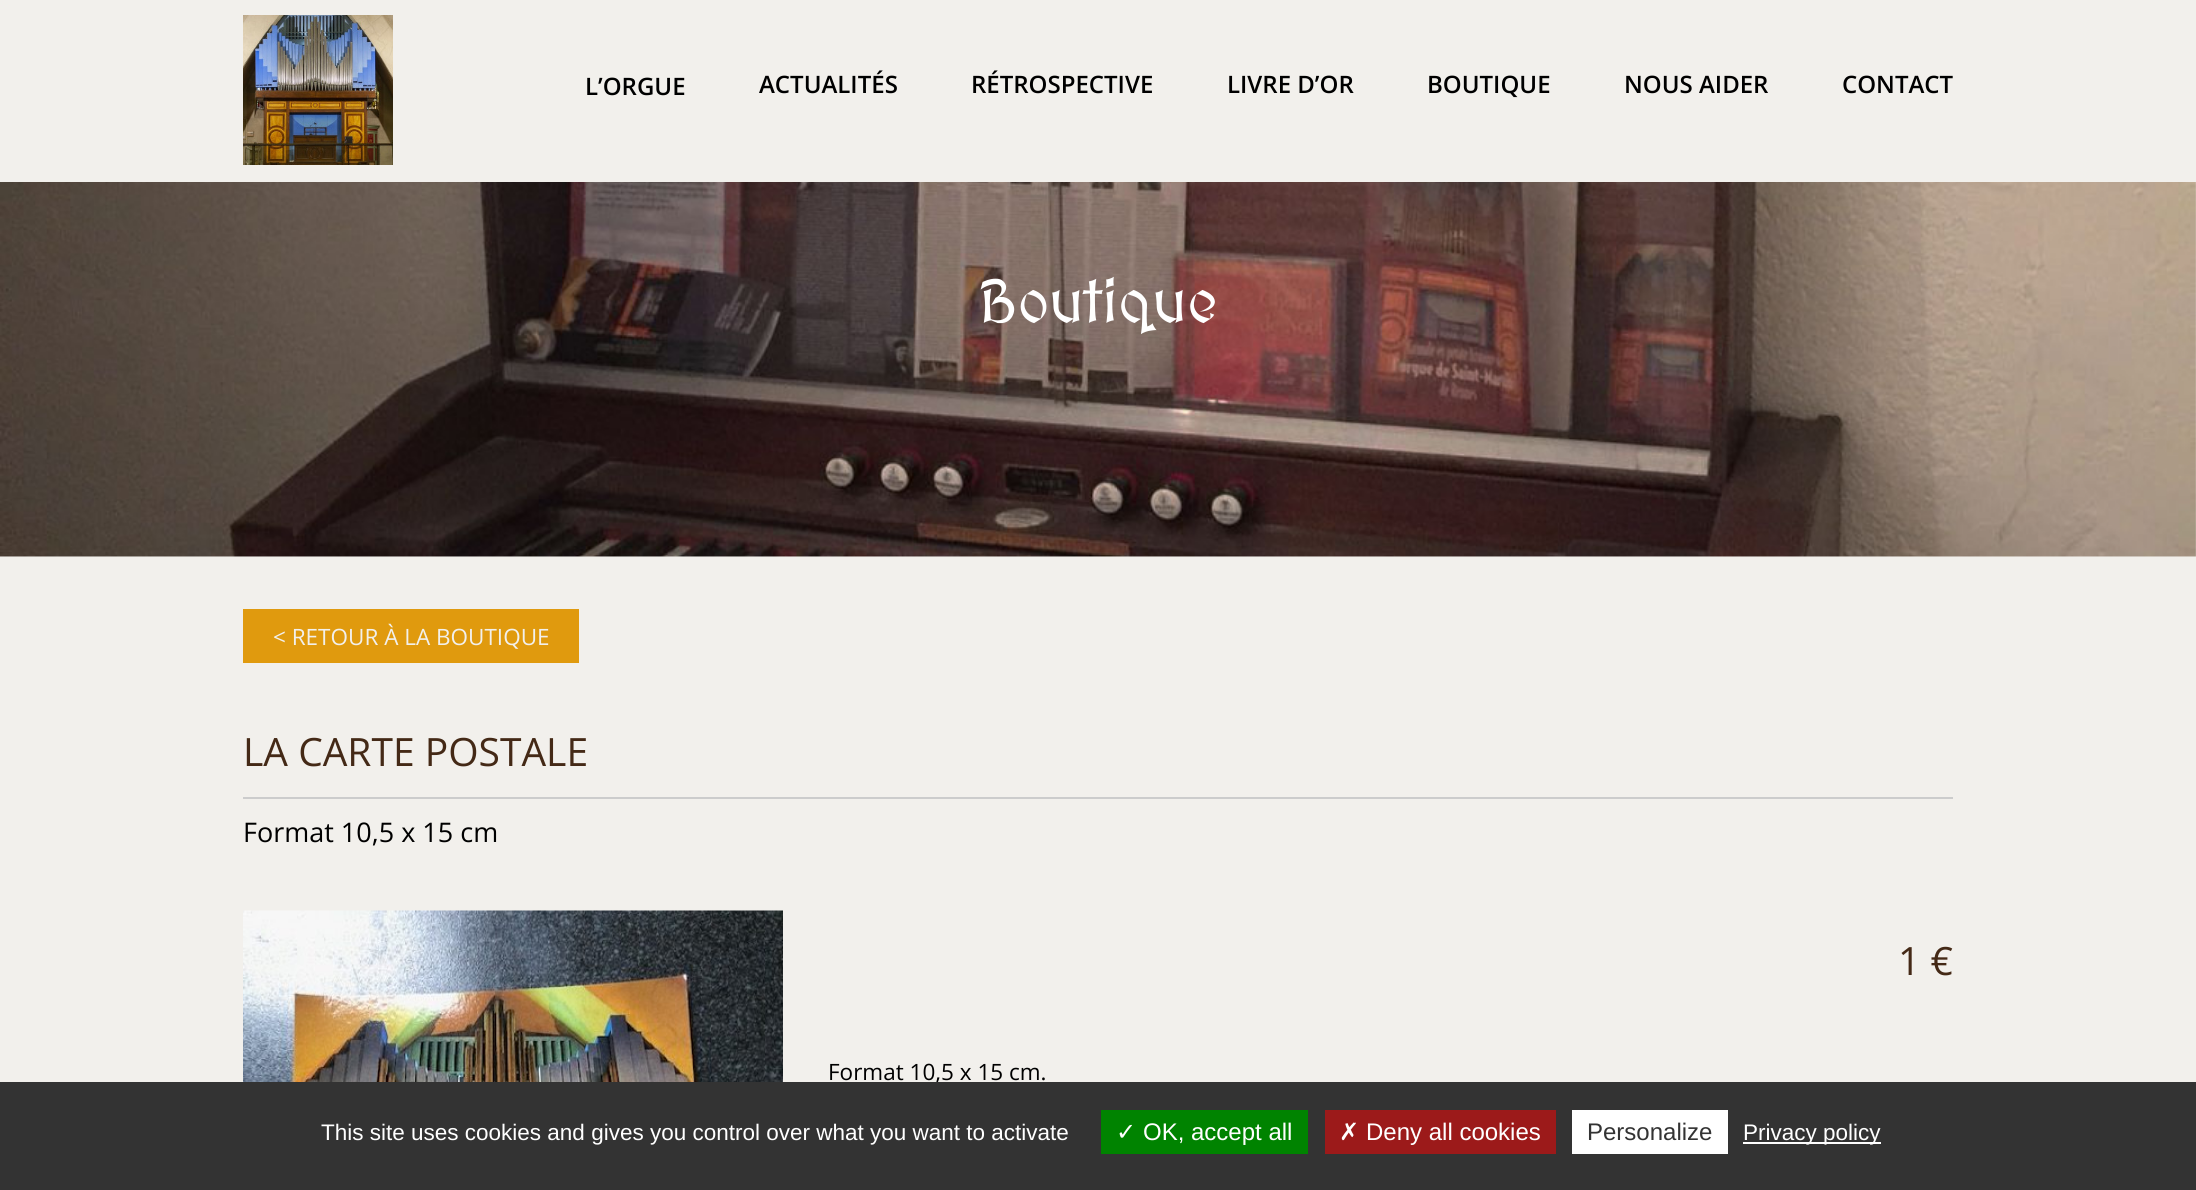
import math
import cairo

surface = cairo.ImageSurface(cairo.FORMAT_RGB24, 2196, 1190)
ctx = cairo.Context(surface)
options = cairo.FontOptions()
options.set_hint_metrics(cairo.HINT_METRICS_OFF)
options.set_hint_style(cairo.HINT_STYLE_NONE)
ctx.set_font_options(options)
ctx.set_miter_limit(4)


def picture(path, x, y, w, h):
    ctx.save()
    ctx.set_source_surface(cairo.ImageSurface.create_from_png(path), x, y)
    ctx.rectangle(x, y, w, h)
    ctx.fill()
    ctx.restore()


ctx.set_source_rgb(0.949, 0.941, 0.925)
ctx.paint()
picture("img1.png", 243, 15, 150, 150)
ctx.select_font_face("Open Sans SemiBold")
ctx.set_font_size(24)
ctx.set_source_rgb(0, 0, 0)
ctx.move_to(585, 95)
ctx.show_text("L’ORGUE")
ctx.move_to(759, 93)
ctx.show_text("ACTUALITÉS")
ctx.move_to(971, 93)
ctx.show_text("RÉTROSPECTIVE")
ctx.move_to(1227, 93)
ctx.show_text("LIVRE D’OR")
ctx.move_to(1427, 93)
ctx.show_text("BOUTIQUE")
ctx.move_to(1624, 93)
ctx.show_text("NOUS AIDER")
ctx.move_to(1842, 93)
ctx.show_text("CONTACT")
picture("img2.png", 0, 182, 2196, 375)
ctx.select_font_face("MedievalSharp Medium")
ctx.set_font_size(60)
ctx.set_source_rgb(1, 1, 1)
ctx.move_to(978, 323)
ctx.show_text("Boutique")
ctx.set_source_rgb(0.878, 0.604, 0.055)
ctx.rectangle(243, 609, 336, 54)
ctx.fill()
ctx.select_font_face("Open Sans")
ctx.set_font_size(22.5)
ctx.set_source_rgb(0.949, 0.941, 0.925)
ctx.move_to(273, 645)
ctx.show_text("< RETOUR À LA BOUTIQUE")
ctx.set_source_rgb(0.8, 0.8, 0.8)
ctx.rectangle(243, 797, 1710, 2)
ctx.fill()
ctx.set_font_size(39)
ctx.set_source_rgb(0.267, 0.161, 0.086)
ctx.move_to(243, 766)
ctx.show_text("LA CARTE POSTALE")
ctx.set_font_size(27)
ctx.set_source_rgb(0, 0, 0)
ctx.move_to(243, 842)
ctx.show_text("Format 10,5 x 15 cm")
picture("img3.png", 243, 910, 540, 172)
ctx.set_font_size(39)
ctx.set_source_rgb(0.267, 0.161, 0.086)
ctx.move_to(1898, 975)
ctx.show_text("1 €")
ctx.set_font_size(22.5)
ctx.set_source_rgb(0, 0, 0)
ctx.move_to(828, 1080)
ctx.show_text("Format 10,5 x 15 cm.")
ctx.set_source_rgb(0.2, 0.2, 0.2)
ctx.rectangle(0, 1082, 2196, 108)
ctx.fill()
ctx.select_font_face("Liberation Sans")
ctx.set_source_rgb(1, 1, 1)
ctx.move_to(321, 1140)
ctx.show_text("This site uses cookies and gives you control over what you want to activate")
ctx.set_source_rgb(0, 0.514, 0)
ctx.rectangle(1101, 1110, 207, 44)
ctx.fill()
ctx.select_font_face("DejaVu Sans")
ctx.set_font_size(24)
ctx.set_source_rgb(1, 1, 1)
ctx.move_to(1116, 1140)
ctx.show_text("✓")
ctx.select_font_face("Liberation Sans")
ctx.move_to(1143, 1140)
ctx.show_text("OK, accept all")
ctx.set_source_rgb(0.612, 0.102, 0.102)
ctx.rectangle(1325, 1110, 231, 44)
ctx.fill()
ctx.select_font_face("DejaVu Sans")
ctx.set_source_rgb(1, 1, 1)
ctx.move_to(1339, 1140)
ctx.show_text("✗")
ctx.select_font_face("Liberation Sans")
ctx.move_to(1366, 1140)
ctx.show_text("Deny all cookies")
ctx.rectangle(1572, 1110, 156, 44)
ctx.fill()
ctx.set_source_rgb(0.2, 0.2, 0.2)
ctx.move_to(1587, 1140)
ctx.show_text("Personalize")
ctx.set_source_rgb(1, 1, 1)
ctx.rectangle(1743, 1142, 138, 2)
ctx.fill()
ctx.set_font_size(22.5)
ctx.move_to(1743, 1140)
ctx.show_text("Privacy policy")
surface.write_to_png("page.png")
